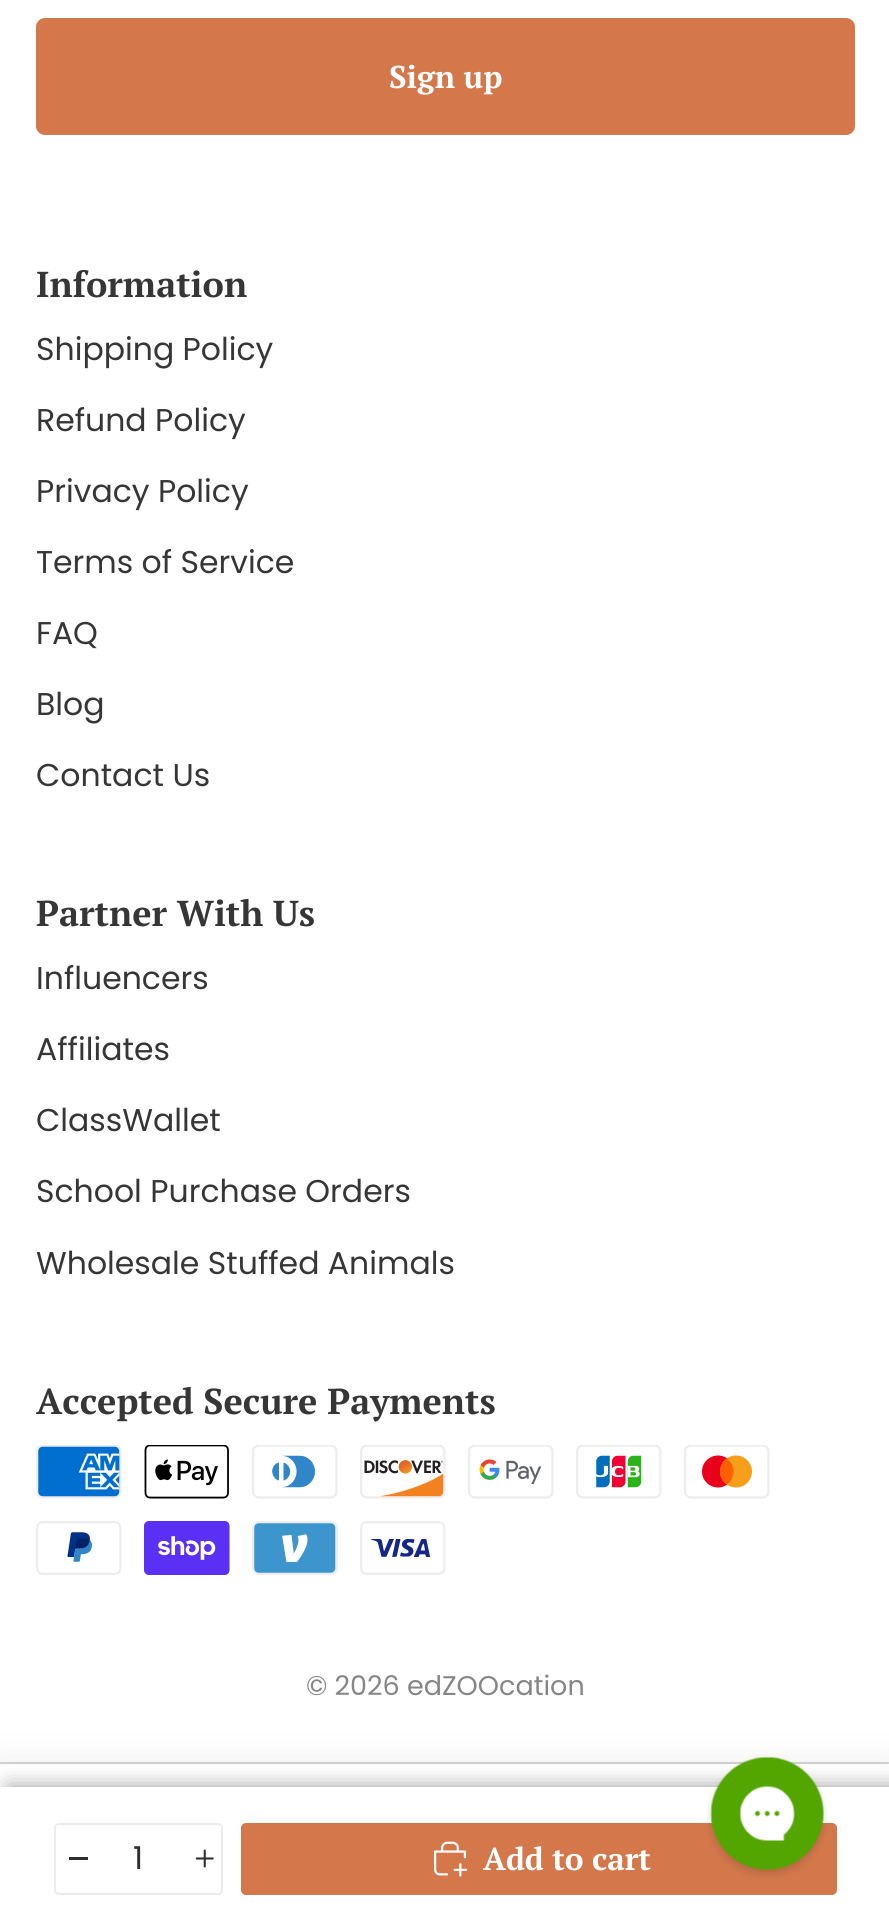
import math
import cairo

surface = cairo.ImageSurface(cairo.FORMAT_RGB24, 889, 1929)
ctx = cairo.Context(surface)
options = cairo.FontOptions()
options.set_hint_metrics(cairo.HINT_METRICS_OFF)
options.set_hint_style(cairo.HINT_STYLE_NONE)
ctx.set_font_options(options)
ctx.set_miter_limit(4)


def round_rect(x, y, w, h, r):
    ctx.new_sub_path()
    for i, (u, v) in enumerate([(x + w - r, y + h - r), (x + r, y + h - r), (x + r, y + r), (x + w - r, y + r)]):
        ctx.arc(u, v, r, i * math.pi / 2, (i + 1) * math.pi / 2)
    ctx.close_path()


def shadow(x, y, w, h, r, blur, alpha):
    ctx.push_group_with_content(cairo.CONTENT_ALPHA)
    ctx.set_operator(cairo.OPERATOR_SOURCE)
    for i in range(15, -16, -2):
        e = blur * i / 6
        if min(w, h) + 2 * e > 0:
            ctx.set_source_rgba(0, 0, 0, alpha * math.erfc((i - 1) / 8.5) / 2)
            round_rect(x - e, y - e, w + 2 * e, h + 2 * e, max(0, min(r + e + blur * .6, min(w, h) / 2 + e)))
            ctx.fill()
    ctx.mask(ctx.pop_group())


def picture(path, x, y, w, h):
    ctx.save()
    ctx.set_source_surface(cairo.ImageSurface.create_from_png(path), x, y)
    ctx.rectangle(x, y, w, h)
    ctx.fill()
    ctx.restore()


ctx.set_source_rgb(1, 1, 1)
ctx.paint()
ctx.set_source_rgb(0.831, 0.471, 0.298)
round_rect(36, 18, 819, 117, 9)
ctx.fill()
ctx.select_font_face("PT Serif", cairo.FONT_SLANT_NORMAL, cairo.FONT_WEIGHT_BOLD)
ctx.set_font_size(31.5)
ctx.set_source_rgb(1, 1, 1)
ctx.move_to(389, 88)
ctx.show_text("Sign up")
ctx.set_font_size(36)
ctx.set_source_rgb(0.212, 0.212, 0.212)
ctx.move_to(36, 297)
ctx.show_text("Information")
ctx.select_font_face("Poppins")
ctx.set_font_size(31.5)
ctx.move_to(36, 360)
ctx.show_text("Shipping Policy")
ctx.move_to(36, 431)
ctx.show_text("Refund Policy")
ctx.move_to(36, 502)
ctx.show_text("Privacy Policy")
ctx.move_to(36, 573)
ctx.show_text("Terms of Service")
ctx.move_to(36, 644)
ctx.show_text("FAQ")
ctx.move_to(36, 715)
ctx.show_text("Blog")
ctx.move_to(36, 786)
ctx.show_text("Contact Us")
ctx.select_font_face("PT Serif", cairo.FONT_SLANT_NORMAL, cairo.FONT_WEIGHT_BOLD)
ctx.set_font_size(36)
ctx.move_to(36, 926)
ctx.show_text("Partner With Us")
ctx.select_font_face("Poppins")
ctx.set_font_size(31.5)
ctx.move_to(36, 989)
ctx.show_text("Influencers")
ctx.move_to(36, 1060)
ctx.show_text("Affiliates")
ctx.move_to(36, 1131)
ctx.show_text("ClassWallet")
ctx.move_to(36, 1202)
ctx.show_text("School Purchase Orders")
ctx.move_to(36, 1274)
ctx.show_text("Wholesale Stuffed Animals")
ctx.select_font_face("PT Serif", cairo.FONT_SLANT_NORMAL, cairo.FONT_WEIGHT_BOLD)
ctx.set_font_size(36)
ctx.move_to(36, 1414)
ctx.show_text("Accepted Secure Payments")
picture("img1.png", 36, 1445, 86, 54)
picture("img2.png", 144, 1445, 85, 54)
picture("img3.png", 252, 1445, 86, 54)
picture("img4.png", 360, 1445, 86, 54)
picture("img5.png", 468, 1445, 86, 54)
picture("img6.png", 576, 1445, 86, 54)
picture("img7.png", 684, 1445, 86, 54)
picture("img8.png", 36, 1521, 86, 54)
picture("img9.png", 144, 1521, 86, 54)
picture("img10.png", 252, 1521, 86, 54)
picture("img11.png", 360, 1521, 86, 54)
ctx.select_font_face("Poppins")
ctx.set_font_size(27)
ctx.set_source_rgb(0.525, 0.525, 0.525)
ctx.move_to(306, 1695)
ctx.show_text("© 2026 edZOOcation")
ctx.set_source_rgb(0.212, 0.212, 0.212)
shadow(0, 1773, 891, 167, 0, 22.5, 0.15)
ctx.set_source_rgba(0, 0, 0, 0.15)
ctx.rectangle(0, 1762, 889, 2)
ctx.fill()
ctx.set_source_rgb(1, 1, 1)
ctx.rectangle(0, 1764, 889, 23)
ctx.fill()
ctx.set_source_rgb(0, 0, 0)
shadow(9, 1787, 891, 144, 0, 11, 0.4)
ctx.set_source_rgb(1, 1, 1)
ctx.rectangle(0, 1787, 889, 142)
ctx.fill()
round_rect(55, 1824, 167, 70, 4)
ctx.set_source_rgb(0.918, 0.918, 0.918)
ctx.stroke()
ctx.set_source_rgb(0.18, 0.18, 0.18)
ctx.rectangle(69, 1857, 19, 3)
ctx.fill()
ctx.set_font_size(31.5)
ctx.move_to(133, 1869)
ctx.show_text("1")
picture("img12.png", 195, 1849, 19, 19)
ctx.set_source_rgb(0.831, 0.471, 0.298)
round_rect(241, 1823, 596, 72, 5)
ctx.fill()
picture("img13.png", 434, 1841, 34, 36)
ctx.select_font_face("PT Serif", cairo.FONT_SLANT_NORMAL, cairo.FONT_WEIGHT_BOLD)
ctx.set_source_rgb(1, 1, 1)
ctx.move_to(483, 1870)
ctx.show_text("Add to cart")
picture("img14.png", 707, 1756, 121, 123)
surface.write_to_png("page.png")
